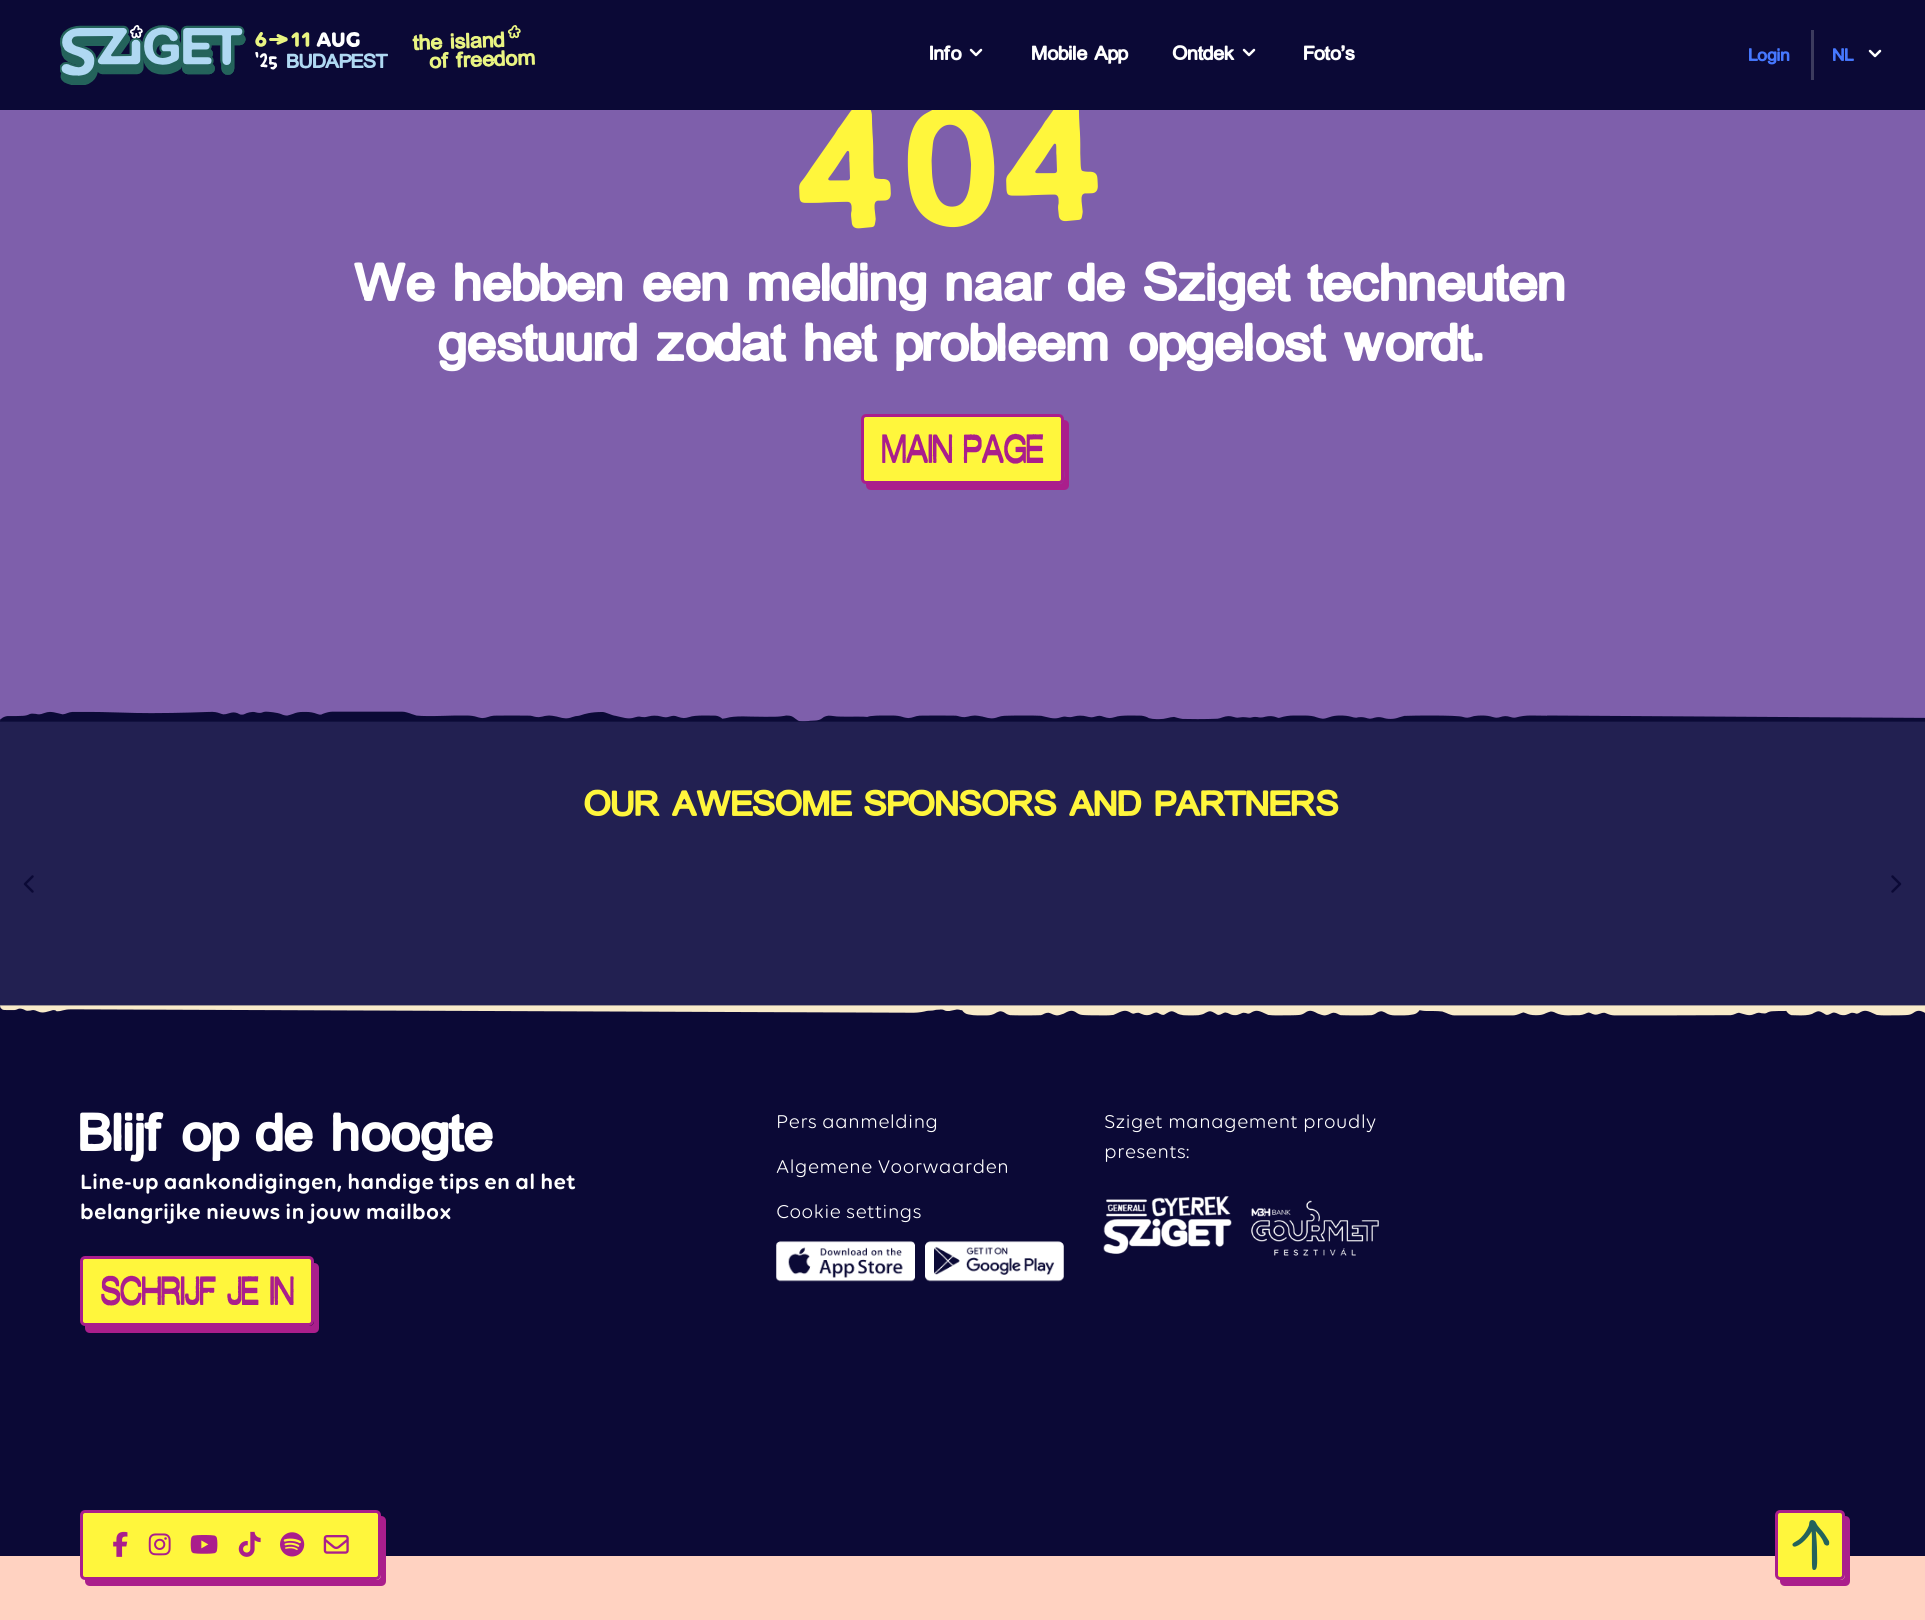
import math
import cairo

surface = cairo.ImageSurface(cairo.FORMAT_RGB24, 1925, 1620)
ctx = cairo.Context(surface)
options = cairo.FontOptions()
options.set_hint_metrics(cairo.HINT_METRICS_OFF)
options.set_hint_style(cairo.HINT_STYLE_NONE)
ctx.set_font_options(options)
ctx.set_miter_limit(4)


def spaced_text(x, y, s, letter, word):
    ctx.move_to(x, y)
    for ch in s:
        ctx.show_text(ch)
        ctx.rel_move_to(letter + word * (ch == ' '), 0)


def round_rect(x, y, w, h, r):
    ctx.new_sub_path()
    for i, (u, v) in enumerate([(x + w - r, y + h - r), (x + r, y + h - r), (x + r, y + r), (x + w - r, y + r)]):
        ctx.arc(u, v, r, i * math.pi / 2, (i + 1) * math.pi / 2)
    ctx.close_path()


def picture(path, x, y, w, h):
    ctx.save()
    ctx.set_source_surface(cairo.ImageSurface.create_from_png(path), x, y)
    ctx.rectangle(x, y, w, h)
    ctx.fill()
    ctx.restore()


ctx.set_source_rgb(1, 0.824, 0.757)
ctx.paint()
ctx.set_source_rgb(0.494, 0.373, 0.671)
ctx.rectangle(0, 110, 1925, 611)
ctx.fill()
ctx.select_font_face("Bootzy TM")
ctx.set_font_size(188)
ctx.set_source_rgb(1, 0.961, 0.235)
ctx.save()
ctx.translate(811, 230)
ctx.rotate(-2 * math.pi / 180)
spaced_text(0, 0, "404", 25, 0)
ctx.restore()
ctx.set_source_rgb(0.043, 0.039, 0.212)
ctx.rectangle(0, 0, 1925, 110)
ctx.fill()
picture("img1.png", 60, 25, 475, 60)
ctx.set_font_size(22.5)
ctx.set_source_rgb(1, 1, 1)
spaced_text(930, 60, "Info", 1, 0)
ctx.new_path()
ctx.move_to(971, 50)
ctx.line_to(976, 55)
ctx.line_to(981, 50)
ctx.set_line_width(2.5)
ctx.set_line_cap(cairo.LINE_CAP_ROUND)
ctx.set_line_join(cairo.LINE_JOIN_ROUND)
ctx.stroke()
spaced_text(1032, 60, "Mobile App", 1, 0)
spaced_text(1173, 60, "Ontdek", 1, 0)
ctx.new_path()
ctx.move_to(1244, 50)
ctx.line_to(1249, 55)
ctx.line_to(1254, 50)
ctx.stroke()
spaced_text(1304, 60, "Foto’s", 1, 0)
ctx.set_font_size(20)
ctx.set_source_rgb(0.275, 0.471, 1)
spaced_text(1749, 61, "Login", 1, 0)
ctx.set_source_rgb(0.235, 0.231, 0.369)
ctx.rectangle(1811, 30, 3, 50)
ctx.fill()
ctx.set_source_rgb(0.275, 0.471, 1)
spaced_text(1833, 61, "NL", 1, 0)
ctx.new_path()
ctx.move_to(1870, 51)
ctx.line_to(1875, 56)
ctx.line_to(1880, 51)
ctx.set_source_rgb(1, 1, 1)
ctx.stroke()
ctx.set_font_size(60)
spaced_text(355, 301, "We hebben een melding naar de Sziget techneuten", 3, -0.25)
spaced_text(439, 361, "gestuurd zodat het probleem opgelost wordt.", 3, 0)
ctx.set_source_rgb(0.667, 0.118, 0.549)
ctx.new_path()
ctx.move_to(866, 484)
ctx.line_to(866, 485)
ctx.curve_to(866, 488, 868, 490, 871, 490)
ctx.line_to(1064, 490)
ctx.curve_to(1067, 490, 1069, 488, 1069, 485)
ctx.line_to(1069, 425)
ctx.curve_to(1069, 422, 1067, 420, 1064, 420)
ctx.line_to(1064, 469)
ctx.curve_to(1064, 472, 1066, 484, 1059, 484)
ctx.close_path()
ctx.fill()
ctx.set_source_rgb(1, 0.961, 0.235)
round_rect(862.5, 415.5, 200, 67, 3.5)
ctx.fill_preserve()
ctx.set_source_rgb(0.667, 0.118, 0.549)
ctx.set_line_width(3)
ctx.set_line_cap(cairo.LINE_CAP_BUTT)
ctx.set_line_join(cairo.LINE_JOIN_MITER)
ctx.stroke()
ctx.select_font_face("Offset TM")
ctx.set_font_size(40)
ctx.move_to(882, 463)
ctx.show_text("MAIN PAGE")
ctx.set_source_rgb(0.133, 0.125, 0.318)
ctx.rectangle(0, 721, 1925, 285)
ctx.fill()
picture("img2.png", 0, 711, 1925, 11)
ctx.select_font_face("Bootzy TM")
ctx.set_source_rgb(1, 0.961, 0.235)
spaced_text(585, 816, "OUR AWESOME SPONSORS AND PARTNERS", 2, 0)
ctx.new_path()
ctx.move_to(32.5, 891.5)
ctx.line_to(25, 884)
ctx.line_to(32.5, 876.5)
ctx.set_source_rgb(0.043, 0.039, 0.212)
ctx.set_line_width(2.5)
ctx.set_line_cap(cairo.LINE_CAP_ROUND)
ctx.set_line_join(cairo.LINE_JOIN_ROUND)
ctx.stroke()
ctx.new_path()
ctx.move_to(1892.5, 876.5)
ctx.line_to(1900, 884)
ctx.line_to(1892.5, 891.5)
ctx.stroke()
ctx.rectangle(0, 1006, 1925, 550)
ctx.fill()
picture("img3.png", 0, 1005, 1925, 11)
ctx.set_font_size(60)
ctx.set_source_rgb(1, 1, 1)
spaced_text(80, 1151, "Blijf op de hoogte", 3, 0)
ctx.select_font_face("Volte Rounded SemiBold")
ctx.set_font_size(22.5)
spaced_text(80, 1189, "Line-up aankondigingen, handige tips en al het", 0.2, 0)
spaced_text(80, 1219, "belangrijke nieuws in jouw mailbox", 0.2, 0)
ctx.set_source_rgb(0.667, 0.118, 0.549)
ctx.new_path()
ctx.move_to(85, 1326)
ctx.line_to(85, 1328)
ctx.curve_to(85, 1331, 87, 1333, 90, 1333)
ctx.line_to(314, 1333)
ctx.curve_to(317, 1333, 319, 1331, 319, 1328)
ctx.line_to(319, 1268)
ctx.curve_to(319, 1265, 317, 1263, 314, 1263)
ctx.line_to(314, 1321)
ctx.curve_to(314, 1324, 312, 1326, 309, 1326)
ctx.close_path()
ctx.fill()
ctx.set_source_rgb(1, 0.961, 0.235)
round_rect(81.5, 1257.5, 231, 67, 3.5)
ctx.fill_preserve()
ctx.set_source_rgb(0.667, 0.118, 0.549)
ctx.set_line_width(3)
ctx.set_line_cap(cairo.LINE_CAP_BUTT)
ctx.set_line_join(cairo.LINE_JOIN_MITER)
ctx.stroke()
ctx.select_font_face("Offset TM")
ctx.set_font_size(40)
ctx.move_to(101, 1305)
ctx.show_text("SCHRIJF JE IN")
ctx.select_font_face("Volte Rounded")
ctx.set_font_size(20)
ctx.set_source_rgb(1, 1, 1)
spaced_text(776, 1128, "Pers aanmelding", 0.2, 0)
spaced_text(776, 1173, "Algemene Voorwaarden", 0.2, 0)
spaced_text(776, 1218, "Cookie settings", 0.2, 0)
picture("img4.png", 776, 1241, 139, 41)
picture("img5.png", 925, 1241, 139, 41)
spaced_text(1104, 1128, "Sziget management proudly", 0.2, 0)
spaced_text(1104, 1158, "presents:", 0.2, 0)
picture("img6.png", 1103, 1196, 129, 58)
picture("img7.png", 1251, 1200, 128, 56)
ctx.set_source_rgb(0.667, 0.118, 0.549)
ctx.new_path()
ctx.move_to(85, 1580)
ctx.line_to(85, 1581)
ctx.curve_to(85, 1584, 87, 1586, 90, 1586)
ctx.line_to(381, 1586)
ctx.curve_to(384, 1586, 386, 1584, 386, 1581)
ctx.line_to(386, 1521)
ctx.curve_to(386, 1518, 384, 1516, 381, 1516)
ctx.line_to(381, 1575)
ctx.curve_to(381, 1578, 379, 1580, 376, 1580)
ctx.close_path()
ctx.fill()
ctx.set_source_rgb(1, 0.961, 0.235)
round_rect(81.5, 1511.5, 298, 67, 3.5)
ctx.fill_preserve()
ctx.set_source_rgb(0.667, 0.118, 0.549)
ctx.stroke()
picture("img8.png", 113, 1531, 15, 26)
picture("img9.png", 148, 1533, 23, 23)
picture("img10.png", 190, 1535, 28, 19)
picture("img11.png", 238, 1531, 23, 26)
picture("img12.png", 280, 1532, 25, 25)
picture("img13.png", 323, 1535, 26, 19)
ctx.new_path()
ctx.move_to(1780, 1580)
ctx.line_to(1780, 1581)
ctx.curve_to(1780, 1584, 1782, 1586, 1785, 1586)
ctx.line_to(1845, 1586)
ctx.curve_to(1848, 1586, 1850, 1584, 1850, 1581)
ctx.line_to(1850, 1521)
ctx.curve_to(1850, 1518, 1848, 1516, 1845, 1516)
ctx.line_to(1845, 1575)
ctx.curve_to(1845, 1578, 1843, 1580, 1840, 1580)
ctx.close_path()
ctx.fill()
ctx.set_source_rgb(1, 0.961, 0.235)
round_rect(1776.5, 1511.5, 67, 67, 3.5)
ctx.fill_preserve()
ctx.set_source_rgb(0.667, 0.118, 0.549)
ctx.stroke()
picture("img14.png", 1792, 1520, 38, 50)
surface.write_to_png("page.png")
